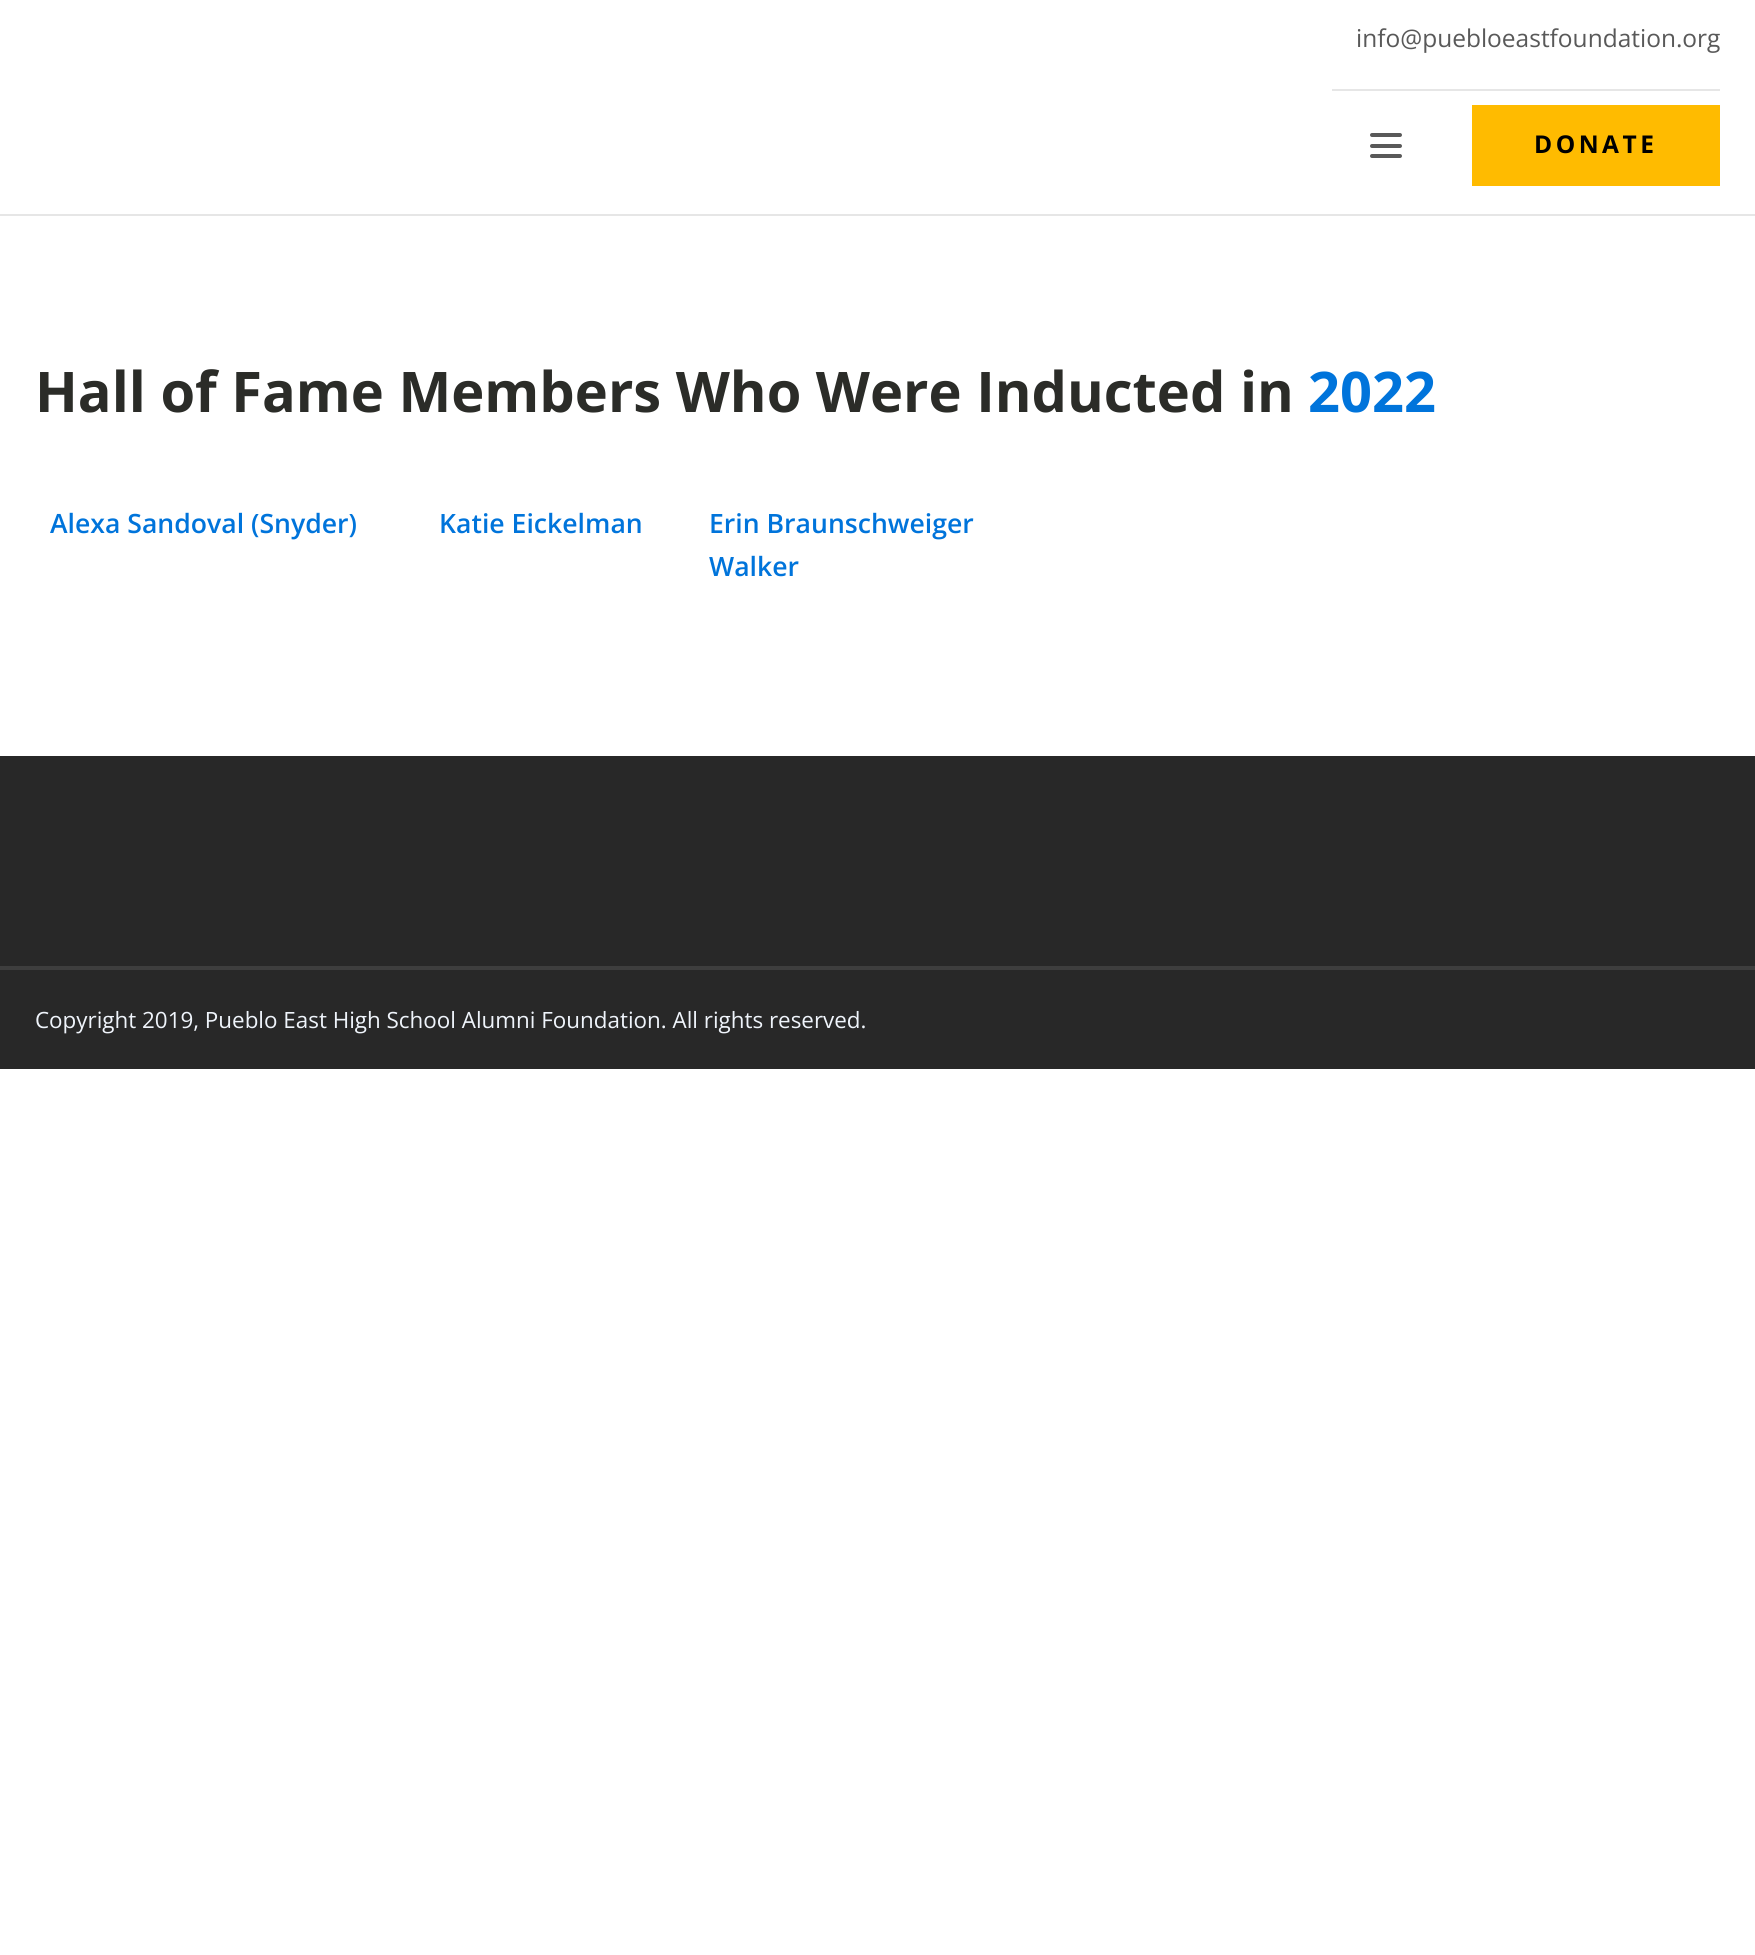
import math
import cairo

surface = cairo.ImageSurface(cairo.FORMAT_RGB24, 1755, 1955)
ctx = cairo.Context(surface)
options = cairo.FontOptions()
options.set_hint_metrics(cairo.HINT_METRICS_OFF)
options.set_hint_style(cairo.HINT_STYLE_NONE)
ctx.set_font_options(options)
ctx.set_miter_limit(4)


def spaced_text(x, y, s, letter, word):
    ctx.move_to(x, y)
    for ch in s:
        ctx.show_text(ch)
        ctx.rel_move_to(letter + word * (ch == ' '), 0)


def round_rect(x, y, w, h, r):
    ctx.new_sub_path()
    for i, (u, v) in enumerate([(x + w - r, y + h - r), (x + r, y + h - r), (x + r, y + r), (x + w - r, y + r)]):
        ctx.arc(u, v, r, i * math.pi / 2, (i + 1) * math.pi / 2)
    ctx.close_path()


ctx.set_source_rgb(1, 1, 1)
ctx.paint()
ctx.select_font_face("Open Sans")
ctx.set_font_size(24.5)
ctx.set_source_rgb(0.349, 0.349, 0.349)
ctx.move_to(1356, 47)
ctx.show_text("info@puebloeastfoundation.org")
ctx.set_source_rgb(0.902, 0.902, 0.902)
ctx.rectangle(0, 214, 1755, 2)
ctx.fill()
ctx.rectangle(1332, 89, 388, 2)
ctx.fill()
ctx.set_source_rgb(0.349, 0.349, 0.349)
round_rect(1370, 133, 32, 4, 2)
ctx.fill()
round_rect(1370, 144, 32, 4, 2)
ctx.fill()
round_rect(1370, 154, 32, 4, 2)
ctx.fill()
ctx.set_source_rgb(1, 0.733, 0)
ctx.rectangle(1472, 105, 248, 81)
ctx.fill()
ctx.select_font_face("Open Sans", cairo.FONT_SLANT_NORMAL, cairo.FONT_WEIGHT_BOLD)
ctx.set_source_rgb(0, 0, 0)
spaced_text(1534, 153, "DONATE", 3.5, 0)
ctx.set_font_size(56)
ctx.set_source_rgb(0.169, 0.173, 0.157)
ctx.move_to(35, 412)
ctx.show_text("Hall of Fame Members Who Were Inducted in")
ctx.set_source_rgb(0, 0.455, 0.859)
ctx.move_to(1308, 412)
ctx.show_text("2022")
ctx.select_font_face("Open Sans SemiBold")
ctx.set_font_size(26.6)
ctx.move_to(50, 533)
ctx.show_text("Alexa Sandoval (Snyder)")
ctx.move_to(439, 533)
ctx.show_text("Katie Eickelman")
ctx.move_to(709, 533)
ctx.show_text("Erin Braunschweiger")
ctx.move_to(709, 576)
ctx.show_text("Walker")
ctx.set_source_rgb(0.157, 0.157, 0.157)
ctx.rectangle(0, 756, 1755, 313)
ctx.fill()
ctx.set_source_rgb(0.243, 0.243, 0.243)
ctx.rectangle(0, 966, 1755, 4)
ctx.fill()
ctx.select_font_face("Open Sans")
ctx.set_font_size(22.4)
ctx.set_source_rgb(0.937, 0.957, 0.984)
ctx.move_to(35, 1028)
ctx.show_text("Copyright 2019, Pueblo East High School Alumni Foundation. All rights reserved.")
surface.write_to_png("page.png")
